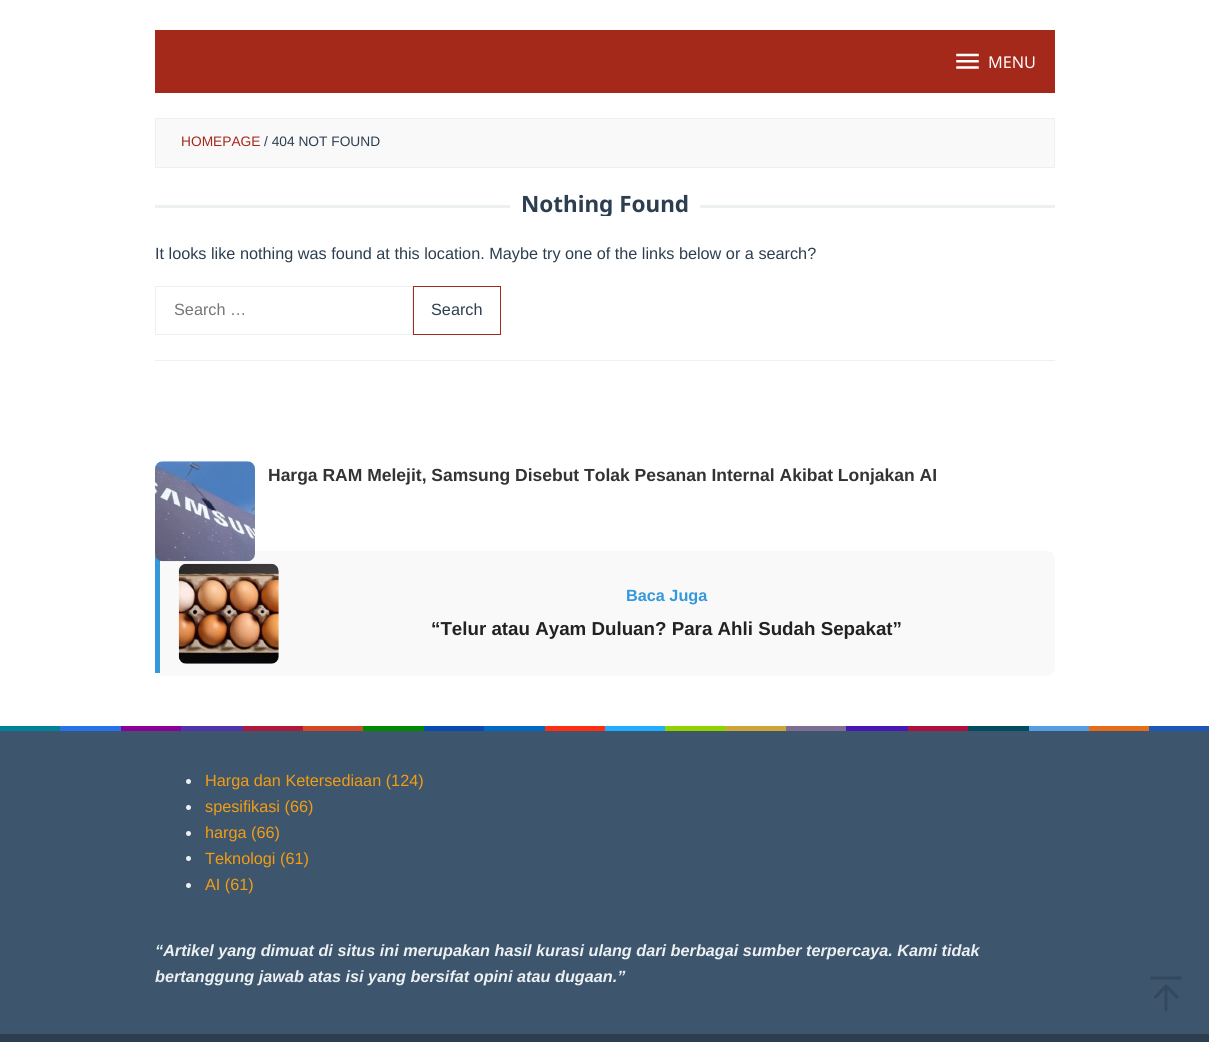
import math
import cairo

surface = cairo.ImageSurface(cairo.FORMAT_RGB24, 1209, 1042)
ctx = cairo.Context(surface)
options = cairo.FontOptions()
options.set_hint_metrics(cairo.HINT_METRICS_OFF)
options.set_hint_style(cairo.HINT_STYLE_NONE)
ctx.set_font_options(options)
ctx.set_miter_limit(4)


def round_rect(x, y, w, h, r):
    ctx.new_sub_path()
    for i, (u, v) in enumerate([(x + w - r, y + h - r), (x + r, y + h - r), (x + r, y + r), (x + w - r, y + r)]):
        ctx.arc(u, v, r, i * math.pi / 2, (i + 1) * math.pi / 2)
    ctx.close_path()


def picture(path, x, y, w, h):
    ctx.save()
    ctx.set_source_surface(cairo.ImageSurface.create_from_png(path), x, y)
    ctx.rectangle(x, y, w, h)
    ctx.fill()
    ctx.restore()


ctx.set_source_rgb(1, 1, 1)
ctx.paint()
ctx.set_source_rgb(0.647, 0.161, 0.106)
ctx.rectangle(155, 30, 900, 63)
ctx.fill()
picture("img1.png", 956, 53, 23, 16)
ctx.select_font_face("Noto Sans")
ctx.set_font_size(16.25)
ctx.set_source_rgb(1, 1, 1)
ctx.move_to(988, 68)
ctx.show_text("MENU")
ctx.set_source_rgb(0.976, 0.976, 0.976)
ctx.rectangle(155.5, 118.5, 899, 49)
ctx.fill_preserve()
ctx.set_source_rgb(0.925, 0.941, 0.945)
ctx.set_line_width(1)
ctx.stroke()
ctx.select_font_face("Liberation Sans")
ctx.set_font_size(13.75)
ctx.set_source_rgb(0.647, 0.161, 0.106)
ctx.move_to(181, 146)
ctx.show_text("HOMEPAGE")
ctx.set_source_rgb(0.173, 0.243, 0.314)
ctx.move_to(264, 146)
ctx.show_text("/ 404 NOT FOUND")
ctx.set_source_rgb(0.925, 0.941, 0.945)
ctx.rectangle(155, 360, 900, 1)
ctx.fill()
ctx.rectangle(155, 205, 355, 3)
ctx.fill()
ctx.save()
ctx.rectangle(155, 193, 900, 23)
ctx.clip()
ctx.select_font_face("Noto Sans", cairo.FONT_SLANT_NORMAL, cairo.FONT_WEIGHT_BOLD)
ctx.set_font_size(22.5)
ctx.set_source_rgb(0.173, 0.243, 0.314)
ctx.move_to(521, 212)
ctx.show_text("Nothing Found")
ctx.restore()
ctx.rectangle(700, 205, 355, 3)
ctx.fill()
ctx.set_font_size(16.25)
ctx.set_source_rgb(0.173, 0.243, 0.314)
ctx.move_to(155, 259)
ctx.show_text("It looks like nothing was found at this location. Maybe try one of the links below or a search?")
ctx.rectangle(155.5, 286.5, 257, 48)
ctx.set_source_rgb(0.925, 0.941, 0.945)
ctx.stroke()
ctx.set_source_rgb(0.459, 0.459, 0.459)
ctx.move_to(174, 315)
ctx.show_text("Search …")
ctx.rectangle(413.5, 286.5, 87, 48)
ctx.set_source_rgb(0.647, 0.161, 0.106)
ctx.stroke()
ctx.set_source_rgb(0.173, 0.243, 0.314)
ctx.move_to(431, 315)
ctx.show_text("Search")
ctx.set_source_rgb(0.976, 0.976, 0.976)
round_rect(155, 551, 900, 125, 8)
ctx.fill()
ctx.set_source_rgb(0.204, 0.596, 0.859)
ctx.rectangle(155, 555, 5, 118)
ctx.fill()
picture("img2.png", 155, 461, 100, 101)
ctx.select_font_face("Liberation Sans", cairo.FONT_SLANT_NORMAL, cairo.FONT_WEIGHT_BOLD)
ctx.set_font_size(17.5)
ctx.set_source_rgb(0.2, 0.2, 0.2)
ctx.move_to(268, 481)
ctx.show_text("Harga RAM Melejit, Samsung Disebut Tolak Pesanan Internal Akibat Lonjakan AI")
picture("img3.png", 178, 563, 101, 101)
ctx.set_font_size(16.25)
ctx.set_source_rgb(0.204, 0.596, 0.859)
ctx.move_to(626, 601)
ctx.show_text("Baca Juga")
ctx.set_font_size(18.75)
ctx.set_source_rgb(0.133, 0.133, 0.133)
ctx.move_to(431, 635)
ctx.show_text("“Telur atau Ayam Duluan? Para Ahli Sudah Sepakat”")
ctx.set_source_rgb(0, 0.51, 0.6)
ctx.rectangle(0, 726, 60, 5)
ctx.fill()
ctx.set_source_rgb(0.149, 0.447, 0.925)
ctx.rectangle(60, 726, 61, 5)
ctx.fill()
ctx.set_source_rgb(0.549, 0, 0.584)
ctx.rectangle(121, 726, 60, 5)
ctx.fill()
ctx.set_source_rgb(0.318, 0.2, 0.671)
ctx.rectangle(181, 726, 62, 5)
ctx.fill()
ctx.set_source_rgb(0.675, 0.098, 0.239)
ctx.rectangle(243, 726, 60, 5)
ctx.fill()
ctx.set_source_rgb(0.824, 0.278, 0.149)
ctx.rectangle(303, 726, 60, 5)
ctx.fill()
ctx.set_source_rgb(0, 0.541, 0)
ctx.rectangle(363, 726, 61, 5)
ctx.fill()
ctx.set_source_rgb(0.035, 0.29, 0.698)
ctx.rectangle(424, 726, 60, 5)
ctx.fill()
ctx.set_source_rgb(0, 0.416, 0.757)
ctx.rectangle(484, 726, 61, 5)
ctx.fill()
ctx.set_source_rgb(1, 0.18, 0.071)
ctx.rectangle(545, 726, 60, 5)
ctx.fill()
ctx.set_source_rgb(0.122, 0.682, 1)
ctx.rectangle(605, 726, 60, 5)
ctx.fill()
ctx.set_source_rgb(0.569, 0.82, 0)
ctx.rectangle(665, 726, 61, 5)
ctx.fill()
ctx.set_source_rgb(0.808, 0.647, 0.224)
ctx.rectangle(726, 726, 60, 5)
ctx.fill()
ctx.set_source_rgb(0.498, 0.431, 0.58)
ctx.rectangle(786, 726, 60, 5)
ctx.fill()
ctx.set_source_rgb(0.275, 0.09, 0.706)
ctx.rectangle(846, 726, 62, 5)
ctx.fill()
ctx.set_source_rgb(0.678, 0.063, 0.235)
ctx.rectangle(908, 726, 60, 5)
ctx.fill()
ctx.set_source_rgb(0, 0.302, 0.376)
ctx.rectangle(968, 726, 61, 5)
ctx.fill()
ctx.set_source_rgb(0.337, 0.612, 0.89)
ctx.rectangle(1029, 726, 60, 5)
ctx.fill()
ctx.set_source_rgb(0.898, 0.424, 0.098)
ctx.rectangle(1089, 726, 60, 5)
ctx.fill()
ctx.set_source_rgb(0.106, 0.345, 0.722)
ctx.rectangle(1149, 726, 60, 5)
ctx.fill()
ctx.set_source_rgb(0.239, 0.337, 0.431)
ctx.rectangle(0, 731, 1209, 303)
ctx.fill()
ctx.set_source_rgb(0.925, 0.941, 0.945)
ctx.arc(188.5, 781.5, 2.5, 0, 2 * math.pi)
ctx.fill()
ctx.select_font_face("Liberation Sans")
ctx.set_font_size(16.25)
ctx.set_source_rgb(0.953, 0.612, 0.071)
ctx.move_to(205, 786)
ctx.show_text("Harga dan Ketersediaan (124)")
ctx.set_source_rgb(0.925, 0.941, 0.945)
ctx.new_path()
ctx.arc(188.5, 807.5, 2.5, 0, 2 * math.pi)
ctx.fill()
ctx.set_source_rgb(0.953, 0.612, 0.071)
ctx.move_to(205, 812)
ctx.show_text("spesifikasi (66)")
ctx.set_source_rgb(0.925, 0.941, 0.945)
ctx.new_path()
ctx.arc(188.5, 833.5, 2.5, 0, 2 * math.pi)
ctx.fill()
ctx.set_source_rgb(0.953, 0.612, 0.071)
ctx.move_to(205, 838)
ctx.show_text("harga (66)")
ctx.set_source_rgb(0.925, 0.941, 0.945)
ctx.new_path()
ctx.arc(188.5, 858.5, 2.5, 0, 2 * math.pi)
ctx.fill()
ctx.set_source_rgb(0.953, 0.612, 0.071)
ctx.move_to(205, 864)
ctx.show_text("Teknologi (61)")
ctx.set_source_rgb(0.925, 0.941, 0.945)
ctx.new_path()
ctx.arc(188.5, 885.5, 2.5, 0, 2 * math.pi)
ctx.fill()
ctx.set_source_rgb(0.953, 0.612, 0.071)
ctx.move_to(205, 890)
ctx.show_text("AI (61)")
ctx.select_font_face("Liberation Sans", cairo.FONT_SLANT_ITALIC, cairo.FONT_WEIGHT_BOLD)
ctx.set_source_rgb(0.925, 0.941, 0.945)
ctx.move_to(155, 956)
ctx.show_text("“Artikel yang dimuat di situs ini merupakan hasil kurasi ulang dari berbagai sumber terpercaya. Kami tidak")
ctx.move_to(155, 982)
ctx.show_text("bertanggung jawab atas isi yang bersifat opini atau dugaan.”")
ctx.set_source_rgb(0.173, 0.243, 0.314)
ctx.rectangle(0, 1034, 1209, 8)
ctx.fill()
ctx.new_path()
ctx.move_to(1166, 1009.5)
ctx.line_to(1166, 986)
ctx.move_to(1155.5, 997)
ctx.line_to(1166, 986)
ctx.line_to(1177, 997)
ctx.move_to(1152, 978)
ctx.line_to(1180.5, 978)
ctx.set_source_rgb(0.2, 0.282, 0.361)
ctx.set_line_width(3.1)
ctx.set_line_cap(cairo.LINE_CAP_ROUND)
ctx.set_line_join(cairo.LINE_JOIN_ROUND)
ctx.stroke()
surface.write_to_png("page.png")
